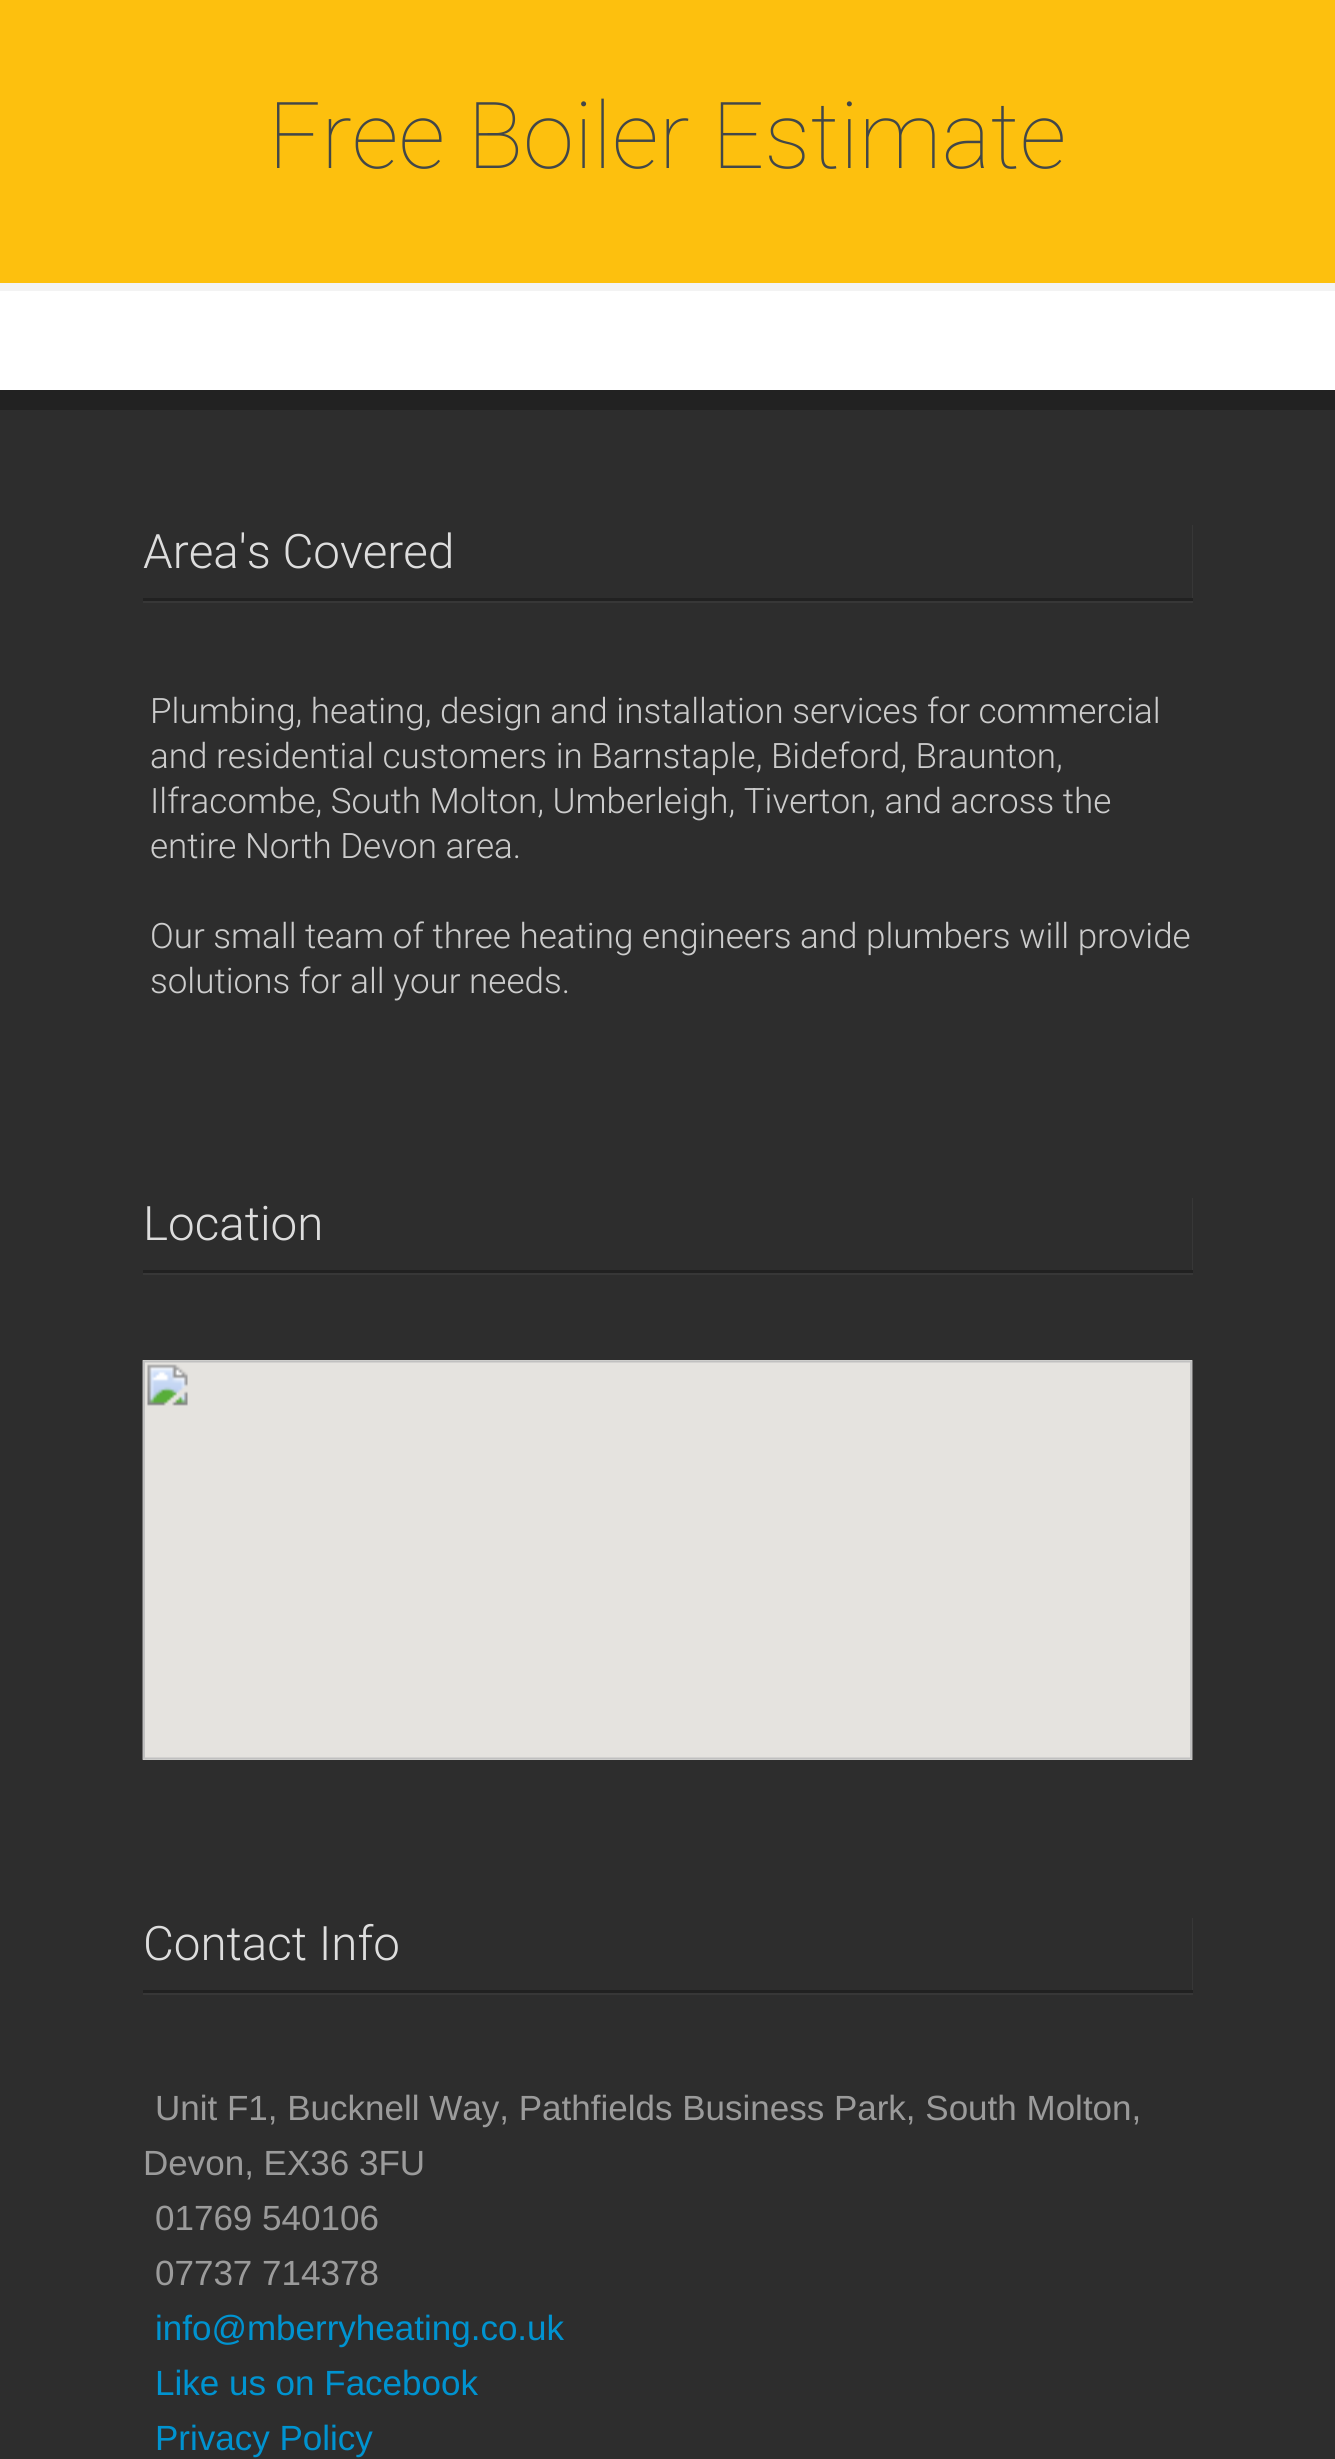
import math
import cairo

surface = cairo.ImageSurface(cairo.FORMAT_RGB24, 1335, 2459)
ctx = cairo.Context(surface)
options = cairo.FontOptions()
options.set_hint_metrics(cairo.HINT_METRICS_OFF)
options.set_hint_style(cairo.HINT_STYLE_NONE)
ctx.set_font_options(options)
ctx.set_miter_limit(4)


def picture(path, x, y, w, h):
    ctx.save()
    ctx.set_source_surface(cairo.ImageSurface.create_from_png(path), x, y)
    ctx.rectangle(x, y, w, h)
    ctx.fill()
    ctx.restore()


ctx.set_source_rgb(1, 1, 1)
ctx.paint()
ctx.set_source_rgb(0.992, 0.753, 0.055)
ctx.rectangle(0, 0, 1335, 283)
ctx.fill()
ctx.set_source_rgb(0.953, 0.953, 0.953)
ctx.rectangle(0, 283, 1335, 8)
ctx.fill()
ctx.select_font_face("Roboto Thin")
ctx.set_font_size(92.5)
ctx.set_source_rgb(0.259, 0.278, 0.282)
ctx.move_to(268, 168)
ctx.show_text("Free Boiler Estimate")
ctx.set_source_rgb(0.176, 0.176, 0.176)
ctx.rectangle(0, 410, 1335, 2049)
ctx.fill()
ctx.set_source_rgb(0.133, 0.133, 0.133)
ctx.rectangle(0, 390, 1335, 20)
ctx.fill()
ctx.set_source_rgb(0.216, 0.216, 0.216)
ctx.new_path()
ctx.move_to(143, 600)
ctx.line_to(143, 603)
ctx.line_to(1193, 603)
ctx.line_to(1193, 525)
ctx.line_to(1192, 525)
ctx.line_to(1192, 600)
ctx.close_path()
ctx.fill()
ctx.set_source_rgb(0.129, 0.129, 0.129)
ctx.rectangle(143, 598, 1050, 3)
ctx.fill()
ctx.select_font_face("Roboto Light")
ctx.set_font_size(47.5)
ctx.set_source_rgb(0.867, 0.867, 0.867)
ctx.move_to(143, 568)
ctx.show_text("Area's Covered")
ctx.set_font_size(35)
ctx.set_source_rgb(0.8, 0.8, 0.8)
ctx.move_to(150, 723)
ctx.show_text("Plumbing, heating, design and installation services for commercial")
ctx.move_to(150, 768)
ctx.show_text("and residential customers in Barnstaple, Bideford, Braunton,")
ctx.move_to(150, 813)
ctx.show_text("Ilfracombe, South Molton, Umberleigh, Tiverton, and across the")
ctx.move_to(150, 858)
ctx.show_text("entire North Devon area.")
ctx.move_to(150, 948)
ctx.show_text("Our small team of three heating engineers and plumbers will provide")
ctx.move_to(150, 993)
ctx.show_text("solutions for all your needs.")
ctx.set_source_rgb(0.216, 0.216, 0.216)
ctx.new_path()
ctx.move_to(143, 1272)
ctx.line_to(143, 1275)
ctx.line_to(1193, 1275)
ctx.line_to(1193, 1198)
ctx.line_to(1192, 1198)
ctx.line_to(1192, 1272)
ctx.close_path()
ctx.fill()
ctx.set_source_rgb(0.129, 0.129, 0.129)
ctx.rectangle(143, 1270, 1050, 3)
ctx.fill()
ctx.set_font_size(47.5)
ctx.set_source_rgb(0.867, 0.867, 0.867)
ctx.move_to(143, 1240)
ctx.show_text("Location")
picture("img1.png", 142, 1360, 1051, 400)
ctx.set_source_rgb(0.216, 0.216, 0.216)
ctx.new_path()
ctx.move_to(143, 1992)
ctx.line_to(143, 1995)
ctx.line_to(1193, 1995)
ctx.line_to(1193, 1918)
ctx.line_to(1192, 1918)
ctx.line_to(1192, 1992)
ctx.close_path()
ctx.fill()
ctx.set_source_rgb(0.129, 0.129, 0.129)
ctx.rectangle(143, 1990, 1050, 3)
ctx.fill()
ctx.set_source_rgb(0.867, 0.867, 0.867)
ctx.move_to(143, 1960)
ctx.show_text("Contact Info")
ctx.select_font_face("Liberation Sans")
ctx.set_font_size(35)
ctx.set_source_rgb(0.608, 0.608, 0.608)
ctx.move_to(155, 2120)
ctx.show_text("Unit F1, Bucknell Way, Pathfields Business Park, South Molton,")
ctx.move_to(143, 2175)
ctx.show_text("Devon, EX36 3FU")
ctx.move_to(155, 2230)
ctx.show_text("01769 540106")
ctx.move_to(155, 2285)
ctx.show_text("07737 714378")
ctx.set_source_rgb(0, 0.576, 0.816)
ctx.move_to(155, 2340)
ctx.show_text("info@mberryheating.co.uk")
ctx.move_to(155, 2395)
ctx.show_text("Like us on Facebook")
ctx.move_to(155, 2450)
ctx.show_text("Privacy Policy")
surface.write_to_png("page.png")
